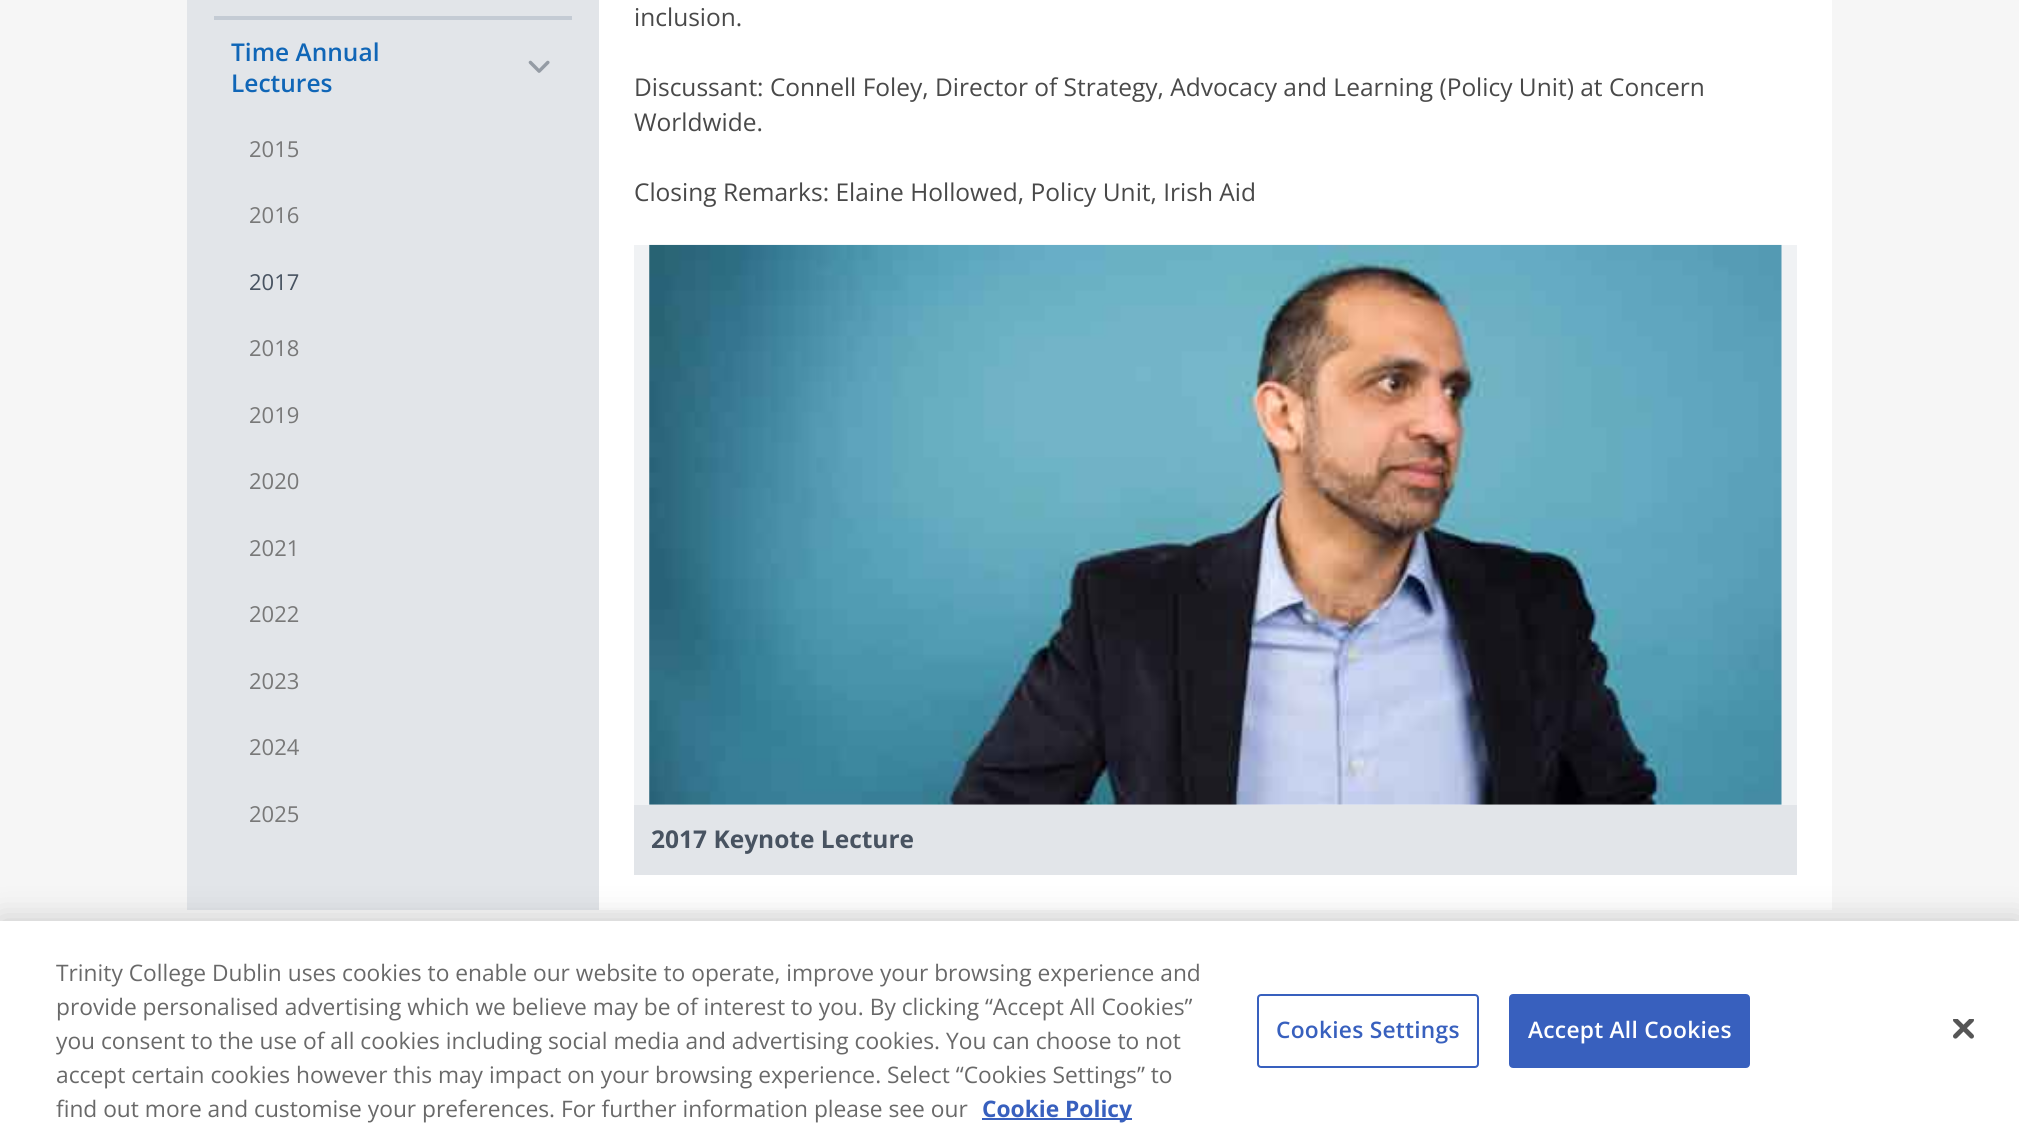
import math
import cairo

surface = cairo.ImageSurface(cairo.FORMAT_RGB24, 2019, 1144)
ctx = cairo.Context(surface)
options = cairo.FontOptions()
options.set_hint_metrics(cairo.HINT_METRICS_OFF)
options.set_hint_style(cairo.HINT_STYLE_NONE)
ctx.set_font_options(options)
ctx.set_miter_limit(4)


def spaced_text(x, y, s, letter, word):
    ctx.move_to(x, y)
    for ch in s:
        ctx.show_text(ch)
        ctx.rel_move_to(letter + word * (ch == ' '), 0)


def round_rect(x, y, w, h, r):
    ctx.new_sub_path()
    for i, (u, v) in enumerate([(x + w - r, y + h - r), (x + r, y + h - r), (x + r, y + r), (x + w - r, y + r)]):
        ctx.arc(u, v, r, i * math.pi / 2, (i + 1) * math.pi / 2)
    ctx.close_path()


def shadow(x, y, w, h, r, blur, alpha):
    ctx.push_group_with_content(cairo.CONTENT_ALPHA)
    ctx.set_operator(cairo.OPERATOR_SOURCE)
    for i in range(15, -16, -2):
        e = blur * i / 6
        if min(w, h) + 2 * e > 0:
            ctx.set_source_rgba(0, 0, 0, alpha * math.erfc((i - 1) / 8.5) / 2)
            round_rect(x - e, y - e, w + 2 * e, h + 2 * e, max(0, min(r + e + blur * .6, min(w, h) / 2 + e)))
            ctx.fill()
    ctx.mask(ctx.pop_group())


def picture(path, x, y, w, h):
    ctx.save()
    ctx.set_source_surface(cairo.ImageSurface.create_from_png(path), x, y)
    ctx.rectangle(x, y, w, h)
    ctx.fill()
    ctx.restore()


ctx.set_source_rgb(0.961, 0.961, 0.961)
ctx.paint()
ctx.set_source_rgb(0.886, 0.898, 0.914)
ctx.rectangle(187, 0, 412, 910)
ctx.fill()
ctx.set_source_rgb(0.769, 0.796, 0.831)
ctx.rectangle(214, 16, 358, 4)
ctx.fill()
ctx.select_font_face("Open Sans SemiBold")
ctx.set_font_size(24.5)
ctx.set_source_rgb(0.063, 0.4, 0.718)
ctx.move_to(231, 61)
ctx.show_text("Time Annual")
ctx.move_to(231, 92)
ctx.show_text("Lectures")
picture("img1.png", 528, 60, 22, 13)
ctx.select_font_face("Open Sans")
ctx.set_font_size(22)
ctx.set_source_rgb(0.471, 0.471, 0.471)
ctx.move_to(249, 157)
ctx.show_text("2015")
ctx.move_to(249, 223)
ctx.show_text("2016")
ctx.set_source_rgb(0.282, 0.325, 0.38)
ctx.move_to(249, 290)
ctx.show_text("2017")
ctx.set_source_rgb(0.471, 0.471, 0.471)
ctx.move_to(249, 356)
ctx.show_text("2018")
ctx.move_to(249, 423)
ctx.show_text("2019")
ctx.move_to(249, 489)
ctx.show_text("2020")
ctx.move_to(249, 556)
ctx.show_text("2021")
ctx.move_to(249, 622)
ctx.show_text("2022")
ctx.move_to(249, 689)
ctx.show_text("2023")
ctx.move_to(249, 755)
ctx.show_text("2024")
ctx.move_to(249, 822)
ctx.show_text("2025")
ctx.set_source_rgb(1, 1, 1)
ctx.rectangle(599, 0, 1233, 910)
ctx.fill()
ctx.set_font_size(24.5)
ctx.set_source_rgb(0.286, 0.286, 0.286)
ctx.move_to(634, 26)
ctx.show_text("inclusion.")
ctx.move_to(634, 96)
ctx.show_text("Discussant: Connell Foley, Director of Strategy, Advocacy and Learning (Policy Unit) at Concern")
ctx.move_to(634, 131)
ctx.show_text("Worldwide.")
ctx.move_to(634, 201)
ctx.show_text("Closing Remarks: Elaine Hollowed, Policy Unit, Irish Aid")
ctx.set_source_rgb(0.941, 0.949, 0.957)
ctx.rectangle(634, 245, 1163, 560)
ctx.fill()
picture("img2.png", 649, 244, 1133, 561)
ctx.set_source_rgb(0.886, 0.898, 0.914)
ctx.rectangle(634, 805, 1163, 70)
ctx.fill()
ctx.select_font_face("Open Sans", cairo.FONT_SLANT_NORMAL, cairo.FONT_WEIGHT_BOLD)
ctx.set_source_rgb(0.282, 0.325, 0.38)
ctx.move_to(651, 848)
ctx.show_text("2017 Keynote Lecture")
ctx.set_source_rgb(0, 0, 0)
shadow(0, 921, 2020, 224, 0, 16, 0.2)
ctx.set_source_rgb(1, 1, 1)
ctx.rectangle(0, 921, 2019, 223)
ctx.fill()
ctx.select_font_face("Open Sans")
ctx.set_font_size(22.75)
ctx.set_source_rgb(0.412, 0.412, 0.412)
ctx.move_to(56, 981)
ctx.show_text("Trinity College Dublin uses cookies to enable our website to operate, improve your browsing experience and")
ctx.move_to(56, 1015)
ctx.show_text("provide personalised advertising which we believe may be of interest to you. By clicking “Accept All Cookies”")
ctx.move_to(56, 1049)
ctx.show_text("you consent to the use of all cookies including social media and advertising cookies. You can choose to not")
ctx.move_to(56, 1083)
ctx.show_text("accept certain cookies however this may impact on your browsing experience. Select “Cookies Settings” to")
ctx.move_to(56, 1117)
ctx.show_text("find out more and customise your preferences. For further information please see our")
ctx.set_source_rgb(0.22, 0.376, 0.745)
ctx.rectangle(982, 1118, 150, 2)
ctx.fill()
ctx.select_font_face("Open Sans", cairo.FONT_SLANT_NORMAL, cairo.FONT_WEIGHT_BOLD)
ctx.move_to(982, 1117)
ctx.show_text("Cookie Policy")
round_rect(1258, 995, 220, 72, 3)
ctx.stroke()
ctx.select_font_face("Open Sans SemiBold")
spaced_text(1276, 1038, "Cookies Settings", 0.25, 0)
round_rect(1510, 995, 239, 72, 3)
ctx.fill_preserve()
ctx.stroke()
ctx.set_source_rgb(1, 1, 1)
spaced_text(1528, 1038, "Accept All Cookies", 0.25, 0)
picture("img3.png", 1953, 1019, 21, 20)
surface.write_to_png("page.png")
